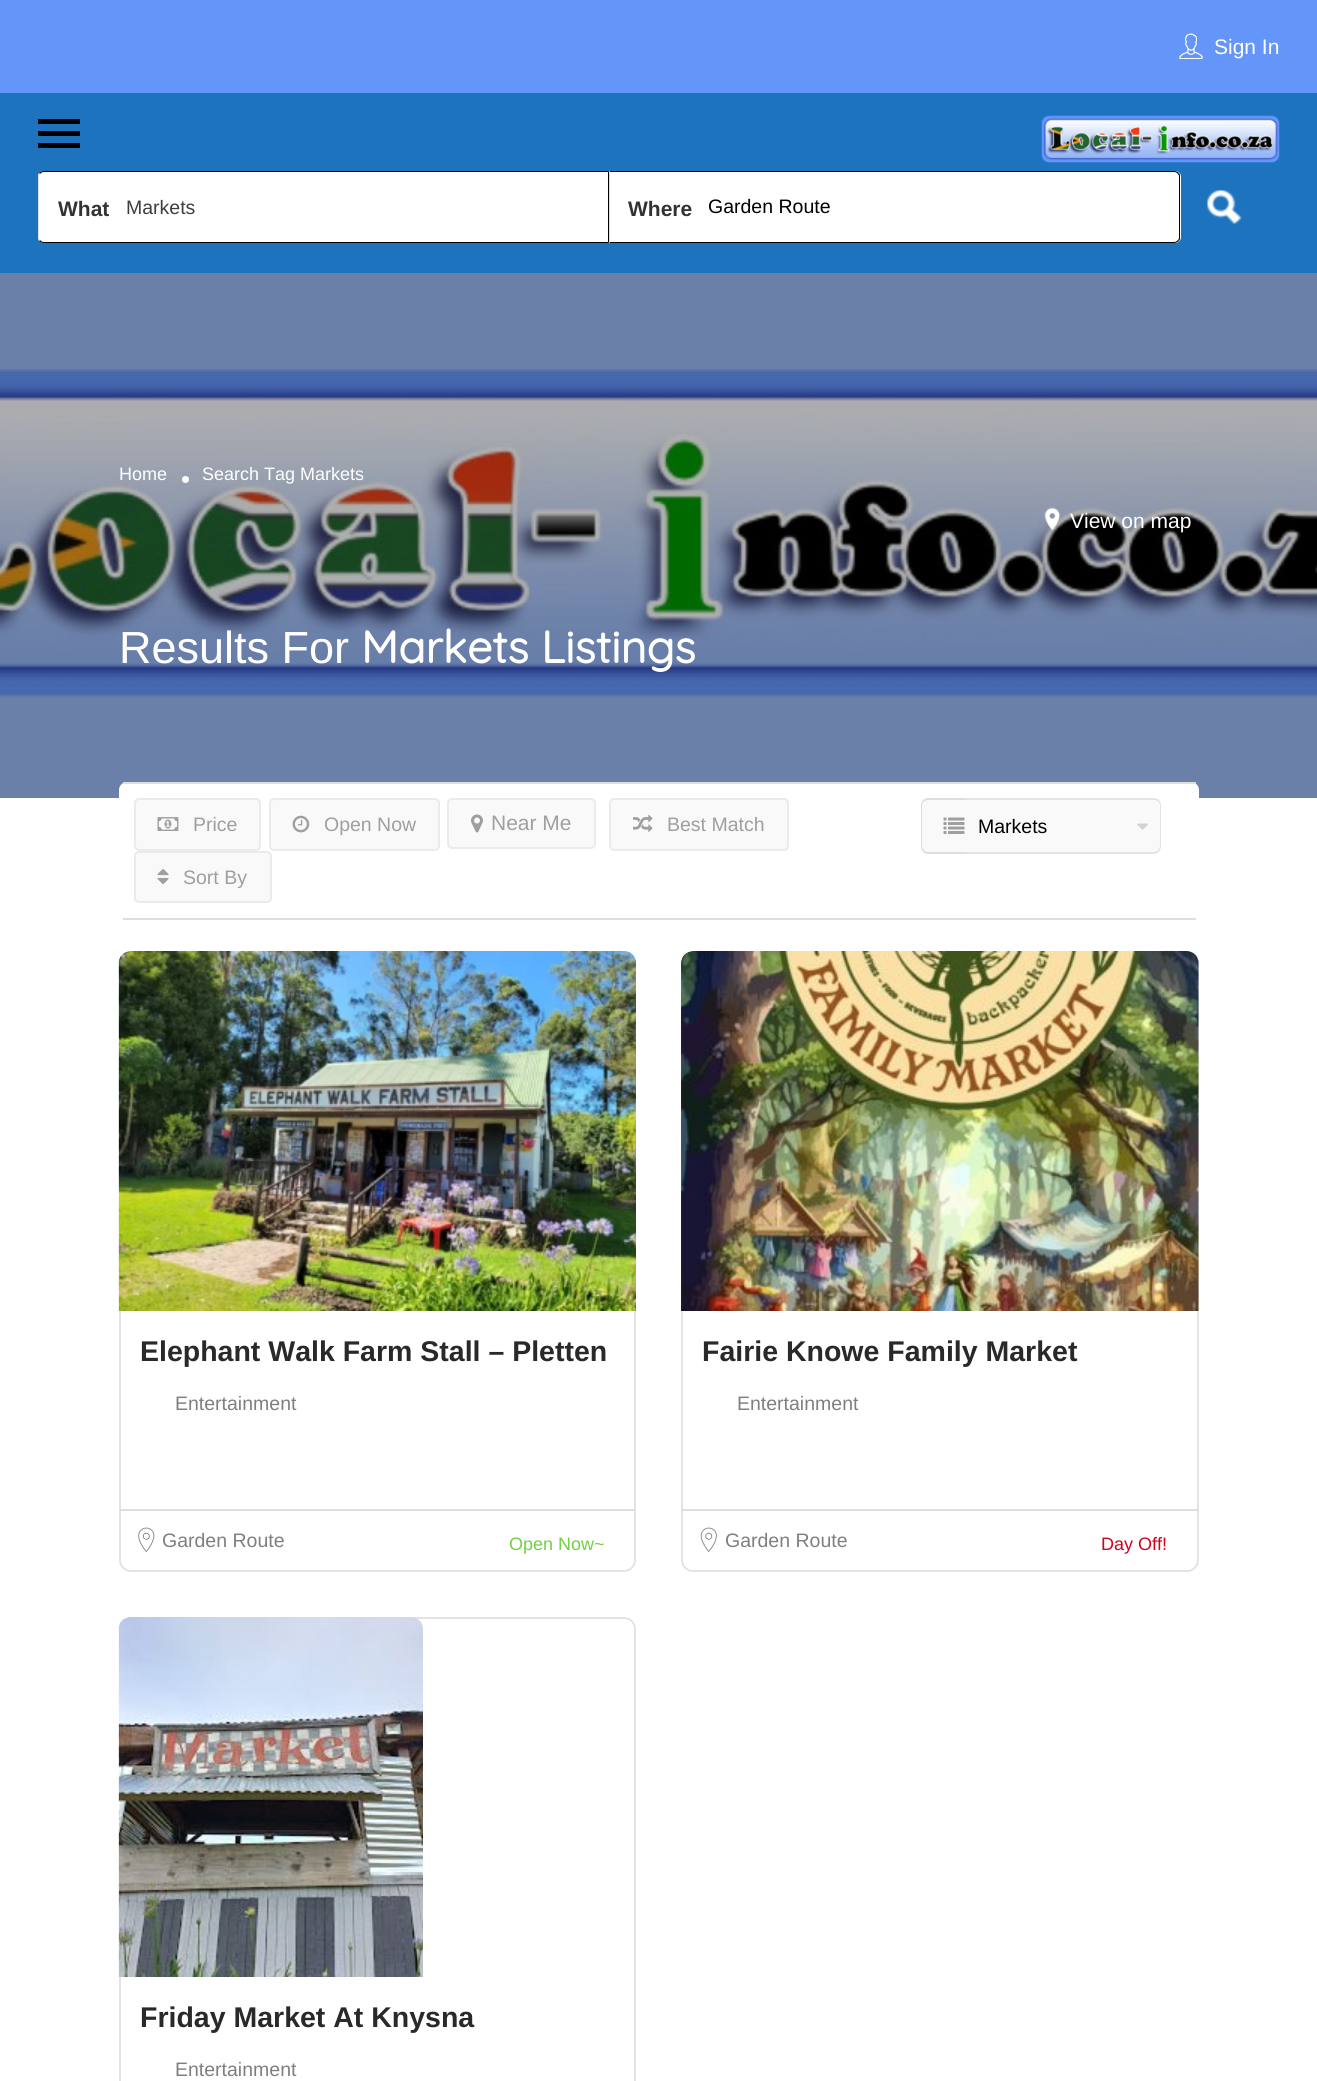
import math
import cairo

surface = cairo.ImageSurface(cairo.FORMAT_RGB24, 1317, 2081)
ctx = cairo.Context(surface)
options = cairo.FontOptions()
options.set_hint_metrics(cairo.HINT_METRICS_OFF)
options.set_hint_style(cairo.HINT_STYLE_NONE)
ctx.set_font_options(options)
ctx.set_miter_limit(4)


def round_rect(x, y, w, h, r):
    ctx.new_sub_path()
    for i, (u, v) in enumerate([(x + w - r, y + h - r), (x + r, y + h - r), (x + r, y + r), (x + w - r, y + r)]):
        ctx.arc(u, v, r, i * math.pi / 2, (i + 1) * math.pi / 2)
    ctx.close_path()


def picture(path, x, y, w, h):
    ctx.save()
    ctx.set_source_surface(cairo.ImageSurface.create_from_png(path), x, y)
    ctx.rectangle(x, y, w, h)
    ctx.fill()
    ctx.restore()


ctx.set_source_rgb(1, 1, 1)
ctx.paint()
ctx.set_source_rgb(0.392, 0.584, 0.976)
ctx.rectangle(0, 0, 1317, 93)
ctx.fill()
picture("img1.png", 1179, 33, 24, 26)
ctx.select_font_face("Liberation Sans")
ctx.set_font_size(21)
ctx.set_source_rgb(1, 1, 1)
ctx.move_to(1214, 54)
ctx.show_text("Sign In")
ctx.set_source_rgb(0.118, 0.451, 0.745)
ctx.rectangle(0, 93, 1317, 180)
ctx.fill()
picture("img2.png", 1041, 115, 239, 48)
ctx.set_source_rgb(0, 0, 0)
ctx.rectangle(38, 119, 42, 5)
ctx.fill()
ctx.rectangle(38, 131, 42, 5)
ctx.fill()
ctx.rectangle(38, 143, 42, 5)
ctx.fill()
ctx.set_source_rgb(1, 1, 1)
ctx.new_path()
ctx.move_to(44, 171)
ctx.line_to(609, 171)
ctx.line_to(609, 243)
ctx.line_to(44, 243)
ctx.curve_to(40.5, 243, 38, 240.5, 38, 237)
ctx.line_to(38, 177)
ctx.curve_to(38, 173.5, 40.5, 171, 44, 171)
ctx.close_path()
ctx.fill()
ctx.set_source_rgb(0, 0, 0)
ctx.new_path()
ctx.move_to(44, 171)
ctx.curve_to(42, 171, 40, 172, 39, 173)
ctx.line_to(40, 174)
ctx.curve_to(41, 173, 42, 172, 44, 172)
ctx.line_to(608, 172)
ctx.line_to(609, 171)
ctx.close_path()
ctx.fill()
ctx.new_path()
ctx.move_to(609, 171)
ctx.line_to(608, 172)
ctx.line_to(608, 242)
ctx.line_to(609, 243)
ctx.close_path()
ctx.fill()
ctx.new_path()
ctx.move_to(609, 243)
ctx.line_to(608, 242)
ctx.line_to(44, 242)
ctx.curve_to(42, 242, 41, 241, 40, 240)
ctx.line_to(39, 241)
ctx.curve_to(40, 242, 42, 243, 44, 243)
ctx.close_path()
ctx.fill()
ctx.set_source_rgb(0.871, 0.871, 0.871)
ctx.new_path()
ctx.move_to(39, 173)
ctx.curve_to(38, 174, 38, 176, 38, 177)
ctx.line_to(38, 237)
ctx.curve_to(38, 238, 38, 240, 39, 241)
ctx.line_to(40, 240)
ctx.curve_to(39, 239, 39, 238, 39, 237)
ctx.line_to(39, 177)
ctx.curve_to(39, 176, 39, 175, 40, 174)
ctx.close_path()
ctx.fill()
ctx.select_font_face("Liberation Sans", cairo.FONT_SLANT_NORMAL, cairo.FONT_WEIGHT_BOLD)
ctx.set_source_rgb(0.2, 0.2, 0.2)
ctx.move_to(58, 216)
ctx.show_text("What")
ctx.select_font_face("Liberation Sans")
ctx.set_font_size(19.5)
ctx.set_source_rgb(0.243, 0.243, 0.243)
ctx.move_to(126, 214)
ctx.show_text("Markets")
ctx.set_source_rgb(1, 1, 1)
ctx.new_path()
ctx.move_to(609, 171)
ctx.line_to(1175, 171)
ctx.curve_to(1178.5, 171, 1181, 173.5, 1181, 177)
ctx.line_to(1181, 237)
ctx.curve_to(1181, 240.5, 1178.5, 243, 1175, 243)
ctx.line_to(609, 243)
ctx.close_path()
ctx.fill()
ctx.set_source_rgb(0, 0, 0)
ctx.new_path()
ctx.move_to(609, 171)
ctx.line_to(610, 172)
ctx.line_to(1174, 172)
ctx.curve_to(1176, 172, 1177, 173, 1178, 174)
ctx.line_to(1179, 173)
ctx.curve_to(1178, 172, 1176, 171, 1174, 171)
ctx.close_path()
ctx.fill()
ctx.new_path()
ctx.move_to(1179, 173)
ctx.curve_to(1180, 174, 1180, 176, 1180, 177)
ctx.line_to(1180, 237)
ctx.curve_to(1180, 238, 1180, 240, 1179, 241)
ctx.line_to(1178, 240)
ctx.curve_to(1179, 239, 1179, 238, 1179, 237)
ctx.line_to(1179, 177)
ctx.curve_to(1179, 176, 1179, 175, 1178, 174)
ctx.close_path()
ctx.fill()
ctx.new_path()
ctx.move_to(1174, 243)
ctx.curve_to(1176, 243, 1178, 242, 1179, 241)
ctx.line_to(1178, 240)
ctx.curve_to(1177, 241, 1176, 242, 1174, 242)
ctx.line_to(610, 242)
ctx.line_to(609, 243)
ctx.close_path()
ctx.fill()
ctx.set_source_rgb(0.871, 0.871, 0.871)
ctx.new_path()
ctx.move_to(609, 171)
ctx.line_to(609, 243)
ctx.line_to(610, 242)
ctx.line_to(610, 172)
ctx.close_path()
ctx.fill()
ctx.select_font_face("Liberation Sans", cairo.FONT_SLANT_NORMAL, cairo.FONT_WEIGHT_BOLD)
ctx.set_font_size(21)
ctx.set_source_rgb(0.2, 0.2, 0.2)
ctx.move_to(628, 216)
ctx.show_text("Where")
ctx.select_font_face("Liberation Sans")
ctx.set_font_size(19.5)
ctx.set_source_rgb(0, 0, 0)
ctx.move_to(708, 213)
ctx.show_text("Garden Route")
picture("img3.png", 1207, 190, 35, 34)
picture("img4.png", 0, 273, 1317, 525)
ctx.set_font_size(18)
ctx.set_source_rgb(1, 1, 1)
ctx.move_to(119, 480)
ctx.show_text("Home")
ctx.new_path()
ctx.arc(185.5, 479.5, 3.5, 0, 2 * math.pi)
ctx.fill()
ctx.move_to(202, 480)
ctx.show_text("Search Tag Markets")
picture("img5.png", 1044, 507, 16, 24)
ctx.set_font_size(21)
ctx.move_to(1070, 528)
ctx.show_text("View on map")
ctx.set_font_size(45)
ctx.move_to(119, 663)
ctx.show_text("Results For")
ctx.select_font_face("Quicksand", cairo.FONT_SLANT_NORMAL, cairo.FONT_WEIGHT_BOLD)
ctx.move_to(361, 663)
ctx.show_text("Markets Listings")
round_rect(119, 782, 1080, 138, 8)
ctx.fill()
ctx.set_source_rgb(0.871, 0.871, 0.871)
ctx.rectangle(123, 782, 1073, 2)
ctx.fill()
ctx.rectangle(123, 918, 1073, 2)
ctx.fill()
ctx.set_source_rgb(0.973, 0.973, 0.973)
round_rect(135, 799, 125, 51, 4)
ctx.fill_preserve()
ctx.set_source_rgb(0.918, 0.918, 0.918)
ctx.stroke()
picture("img6.png", 157, 817, 22, 14)
ctx.select_font_face("Liberation Sans")
ctx.set_font_size(19.5)
ctx.set_source_rgb(0.624, 0.624, 0.624)
ctx.move_to(193, 831)
ctx.show_text("Price")
ctx.set_source_rgb(0.973, 0.973, 0.973)
round_rect(270, 799, 169, 51, 4)
ctx.fill_preserve()
ctx.set_source_rgb(0.918, 0.918, 0.918)
ctx.stroke()
picture("img7.png", 292, 815, 18, 18)
ctx.set_source_rgb(0.624, 0.624, 0.624)
ctx.move_to(324, 831)
ctx.show_text("Open Now")
ctx.set_source_rgb(0.973, 0.973, 0.973)
round_rect(448, 799, 147, 49, 4)
ctx.fill_preserve()
ctx.set_source_rgb(0.918, 0.918, 0.918)
ctx.stroke()
picture("img8.png", 471, 814, 12, 19)
ctx.set_font_size(21)
ctx.set_source_rgb(0.624, 0.624, 0.624)
ctx.move_to(491, 830)
ctx.show_text("Near Me")
ctx.set_source_rgb(0.973, 0.973, 0.973)
round_rect(610, 799, 178, 51, 4)
ctx.fill_preserve()
ctx.set_source_rgb(0.918, 0.918, 0.918)
ctx.stroke()
picture("img9.png", 633, 814, 20, 18)
ctx.set_font_size(19.5)
ctx.set_source_rgb(0.624, 0.624, 0.624)
ctx.move_to(667, 831)
ctx.show_text("Best Match")
ctx.set_source_rgb(0.973, 0.973, 0.973)
round_rect(135, 852, 136, 50, 4)
ctx.fill_preserve()
ctx.set_source_rgb(0.918, 0.918, 0.918)
ctx.stroke()
picture("img10.png", 157, 869, 12, 16)
ctx.set_source_rgb(0.624, 0.624, 0.624)
ctx.move_to(183, 884)
ctx.show_text("Sort By")
ctx.set_source_rgb(0.973, 0.973, 0.973)
ctx.new_path()
ctx.move_to(929, 798)
ctx.line_to(966, 798)
ctx.line_to(966, 854)
ctx.line_to(929, 854)
ctx.curve_to(924.5, 854, 921, 850.5, 921, 846)
ctx.line_to(921, 806)
ctx.curve_to(921, 801.5, 924.5, 798, 929, 798)
ctx.close_path()
ctx.fill()
ctx.set_source_rgb(0.871, 0.871, 0.871)
ctx.set_fill_rule(cairo.FILL_RULE_EVEN_ODD)
ctx.new_path()
ctx.move_to(928, 798)
ctx.line_to(966, 798)
ctx.line_to(966, 854)
ctx.line_to(928, 854)
ctx.curve_to(924, 854, 921, 850, 921, 846)
ctx.line_to(921, 806)
ctx.curve_to(921, 801, 924, 798, 928, 798)
ctx.close_path()
ctx.move_to(928, 800)
ctx.line_to(966, 800)
ctx.line_to(966, 852)
ctx.line_to(928, 852)
ctx.curve_to(925, 852, 922, 849, 922, 846)
ctx.line_to(922, 806)
ctx.curve_to(922, 802, 925, 800, 928, 800)
ctx.close_path()
ctx.fill()
picture("img11.png", 943, 817, 22, 17)
ctx.set_source_rgb(0.973, 0.973, 0.973)
ctx.new_path()
ctx.move_to(966, 798)
ctx.line_to(1153, 798)
ctx.curve_to(1157.5, 798, 1161, 801.5, 1161, 806)
ctx.line_to(1161, 846)
ctx.curve_to(1161, 850.5, 1157.5, 854, 1153, 854)
ctx.line_to(966, 854)
ctx.close_path()
ctx.fill()
ctx.set_source_rgb(0.89, 0.89, 0.89)
ctx.new_path()
ctx.move_to(966, 798)
ctx.line_to(1154, 798)
ctx.curve_to(1158, 798, 1161, 801, 1161, 806)
ctx.line_to(1161, 846)
ctx.curve_to(1161, 850, 1158, 854, 1154, 854)
ctx.line_to(966, 854)
ctx.close_path()
ctx.move_to(966, 800)
ctx.line_to(1154, 800)
ctx.curve_to(1157, 800, 1160, 802, 1160, 806)
ctx.line_to(1160, 846)
ctx.curve_to(1160, 849, 1157, 852, 1154, 852)
ctx.line_to(966, 852)
ctx.close_path()
ctx.fill()
ctx.set_source_rgb(0, 0, 0)
ctx.move_to(978, 833)
ctx.show_text("Markets")
picture("img12.png", 1137, 823, 11, 7)
round_rect(120, 952, 515, 619, 11)
ctx.set_source_rgb(0.89, 0.89, 0.89)
ctx.stroke()
picture("img13.png", 118, 951, 518, 360)
ctx.select_font_face("Liberation Sans", cairo.FONT_SLANT_NORMAL, cairo.FONT_WEIGHT_BOLD)
ctx.set_font_size(28.5)
ctx.set_source_rgb(0.161, 0.161, 0.161)
ctx.move_to(140, 1361)
ctx.show_text("Elephant Walk Farm Stall – Pletten")
ctx.select_font_face("Liberation Sans")
ctx.set_font_size(19.5)
ctx.set_source_rgb(0.498, 0.498, 0.498)
ctx.move_to(175, 1410)
ctx.show_text("Entertainment")
ctx.set_source_rgb(0.871, 0.871, 0.871)
ctx.rectangle(120, 1509, 515, 2)
ctx.fill()
picture("img14.png", 138, 1527, 17, 25)
ctx.set_source_rgb(0.498, 0.498, 0.498)
ctx.move_to(162, 1547)
ctx.show_text("Garden Route")
ctx.set_font_size(18)
ctx.set_source_rgb(0.451, 0.812, 0.259)
ctx.move_to(509, 1550)
ctx.show_text("Open Now~")
round_rect(682, 952, 516, 619, 11)
ctx.set_source_rgb(0.89, 0.89, 0.89)
ctx.stroke()
picture("img15.png", 681, 951, 518, 360)
ctx.select_font_face("Liberation Sans", cairo.FONT_SLANT_NORMAL, cairo.FONT_WEIGHT_BOLD)
ctx.set_font_size(28.5)
ctx.set_source_rgb(0.161, 0.161, 0.161)
ctx.move_to(702, 1361)
ctx.show_text("Fairie Knowe Family Market")
ctx.select_font_face("Liberation Sans")
ctx.set_font_size(19.5)
ctx.set_source_rgb(0.498, 0.498, 0.498)
ctx.move_to(737, 1410)
ctx.show_text("Entertainment")
ctx.set_source_rgb(0.871, 0.871, 0.871)
ctx.rectangle(683, 1509, 514, 2)
ctx.fill()
picture("img16.png", 700, 1527, 17, 25)
ctx.set_source_rgb(0.498, 0.498, 0.498)
ctx.move_to(725, 1547)
ctx.show_text("Garden Route")
ctx.set_font_size(18)
ctx.set_source_rgb(0.816, 0.008, 0.106)
ctx.move_to(1101, 1550)
ctx.show_text("Day Off!")
round_rect(120, 1618, 515, 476, 11)
ctx.set_source_rgb(0.89, 0.89, 0.89)
ctx.stroke()
picture("img17.png", 118, 1617, 305, 360)
ctx.select_font_face("Liberation Sans", cairo.FONT_SLANT_NORMAL, cairo.FONT_WEIGHT_BOLD)
ctx.set_font_size(28.5)
ctx.set_source_rgb(0.161, 0.161, 0.161)
ctx.move_to(140, 2027)
ctx.show_text("Friday Market At Knysna")
ctx.select_font_face("Liberation Sans")
ctx.set_font_size(19.5)
ctx.set_source_rgb(0.498, 0.498, 0.498)
ctx.move_to(175, 2076)
ctx.show_text("Entertainment")
surface.write_to_png("page.png")
